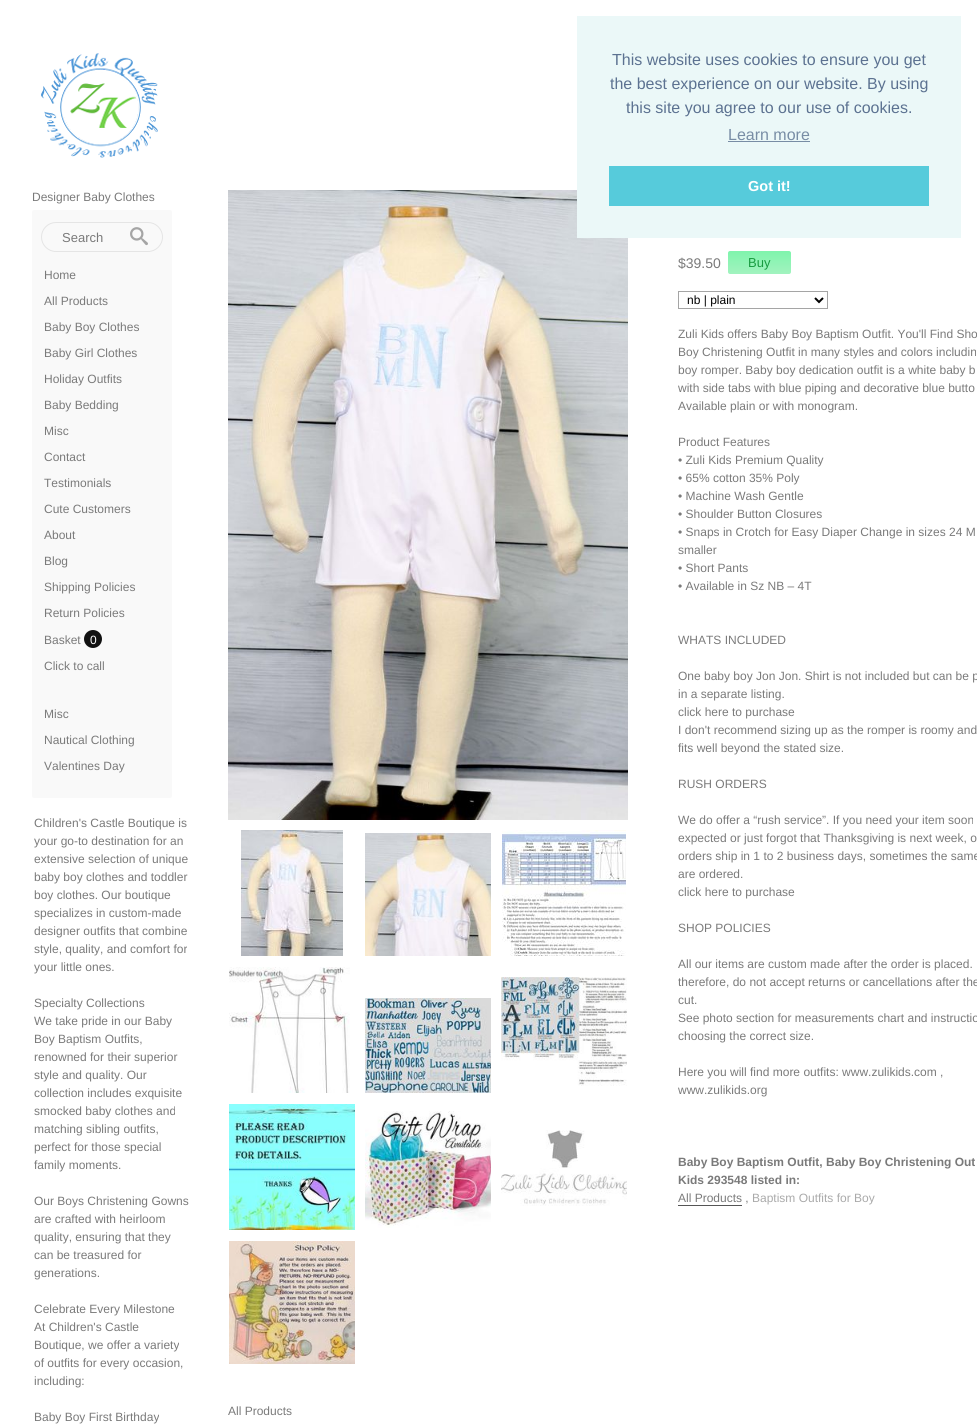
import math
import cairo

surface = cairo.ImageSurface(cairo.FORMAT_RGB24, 977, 1425)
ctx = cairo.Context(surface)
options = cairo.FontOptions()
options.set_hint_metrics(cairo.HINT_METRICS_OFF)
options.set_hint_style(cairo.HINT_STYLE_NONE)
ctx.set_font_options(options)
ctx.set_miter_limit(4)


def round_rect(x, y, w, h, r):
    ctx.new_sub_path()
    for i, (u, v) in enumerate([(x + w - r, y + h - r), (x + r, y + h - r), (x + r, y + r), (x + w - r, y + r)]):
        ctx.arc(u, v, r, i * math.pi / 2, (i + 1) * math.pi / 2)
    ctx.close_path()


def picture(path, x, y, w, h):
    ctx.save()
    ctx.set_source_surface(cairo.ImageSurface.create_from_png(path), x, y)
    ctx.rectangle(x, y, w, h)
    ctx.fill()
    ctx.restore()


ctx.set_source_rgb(1, 1, 1)
ctx.paint()
picture("img3.png", 228, 190, 400, 630)
ctx.set_source_rgb(0.918, 0.969, 0.969)
ctx.rectangle(577, 16, 384, 222)
ctx.fill()
ctx.select_font_face("Liberation Sans")
ctx.set_font_size(16)
ctx.set_source_rgb(0.361, 0.447, 0.569)
ctx.move_to(612, 65)
ctx.show_text("This website uses cookies to ensure you get")
ctx.move_to(610, 89)
ctx.show_text("the best experience on our website. By using")
ctx.move_to(626, 113)
ctx.show_text("this site you agree to our use of cookies.")
ctx.set_source_rgb(0.471, 0.553, 0.647)
ctx.move_to(728, 140)
ctx.show_text("Learn more")
ctx.rectangle(728, 141, 82, 1)
ctx.fill()
ctx.set_source_rgb(0.337, 0.796, 0.859)
ctx.rectangle(609, 166, 320, 40)
ctx.fill()
ctx.select_font_face("Liberation Sans", cairo.FONT_SLANT_NORMAL, cairo.FONT_WEIGHT_BOLD)
ctx.set_font_size(14.5)
ctx.set_source_rgb(1, 1, 1)
ctx.move_to(748, 191)
ctx.show_text("Got it!")
picture("img1.png", 41, 53, 117, 105)
ctx.select_font_face("Liberation Sans")
ctx.set_font_size(12)
ctx.set_source_rgb(0.478, 0.478, 0.478)
ctx.move_to(32, 201)
ctx.show_text("Designer Baby Clothes")
ctx.set_source_rgb(0.973, 0.973, 0.973)
round_rect(32, 210, 140, 588, 2)
ctx.fill()
round_rect(41.5, 222.5, 121, 29, 14.5)
ctx.set_source_rgb(0.898, 0.898, 0.898)
ctx.set_line_width(1)
ctx.stroke()
ctx.set_font_size(13)
ctx.set_source_rgb(0.478, 0.478, 0.478)
ctx.move_to(62, 242)
ctx.show_text("Search")
picture("img2.png", 130, 227, 18, 19)
ctx.set_font_size(12)
ctx.move_to(44, 279)
ctx.show_text("Home")
ctx.move_to(44, 305)
ctx.show_text("All Products")
ctx.move_to(44, 331)
ctx.show_text("Baby Boy Clothes")
ctx.move_to(44, 357)
ctx.show_text("Baby Girl Clothes")
ctx.move_to(44, 383)
ctx.show_text("Holiday Outfits")
ctx.move_to(44, 409)
ctx.show_text("Baby Bedding")
ctx.move_to(44, 435)
ctx.show_text("Misc")
ctx.move_to(44, 461)
ctx.show_text("Contact")
ctx.move_to(44, 487)
ctx.show_text("Testimonials")
ctx.move_to(44, 513)
ctx.show_text("Cute Customers")
ctx.move_to(44, 539)
ctx.show_text("About")
ctx.move_to(44, 565)
ctx.show_text("Blog")
ctx.move_to(44, 591)
ctx.show_text("Shipping Policies")
ctx.move_to(44, 617)
ctx.show_text("Return Policies")
ctx.move_to(44, 644)
ctx.show_text("Basket")
ctx.set_source_rgb(0.067, 0.067, 0.067)
ctx.new_path()
ctx.arc(93, 639, 9, 0, 2 * math.pi)
ctx.fill()
ctx.set_source_rgb(1, 1, 1)
ctx.move_to(90, 644)
ctx.show_text("0")
ctx.set_source_rgb(0.478, 0.478, 0.478)
ctx.move_to(44, 670)
ctx.show_text("Click to call")
ctx.move_to(44, 718)
ctx.show_text("Misc")
ctx.move_to(44, 744)
ctx.show_text("Nautical Clothing")
ctx.move_to(44, 770)
ctx.show_text("Valentines Day")
ctx.move_to(34, 827)
ctx.show_text("Children's Castle Boutique is")
ctx.move_to(34, 845)
ctx.show_text("your go-to destination for an")
ctx.move_to(34, 863)
ctx.show_text("extensive selection of unique")
ctx.move_to(34, 881)
ctx.show_text("baby boy clothes and toddler")
ctx.move_to(34, 899)
ctx.show_text("boy clothes. Our boutique")
ctx.move_to(34, 917)
ctx.show_text("specializes in custom-made")
ctx.move_to(34, 935)
ctx.show_text("designer outfits that combine")
ctx.move_to(34, 953)
ctx.show_text("style, quality, and comfort for")
ctx.move_to(34, 971)
ctx.show_text("your little ones.")
ctx.move_to(34, 1007)
ctx.show_text("Specialty Collections")
ctx.move_to(34, 1025)
ctx.show_text("We take pride in our Baby")
ctx.move_to(34, 1043)
ctx.show_text("Boy Baptism Outfits,")
ctx.move_to(34, 1061)
ctx.show_text("renowned for their superior")
ctx.move_to(34, 1079)
ctx.show_text("style and quality. Our")
ctx.move_to(34, 1097)
ctx.show_text("collection includes exquisite")
ctx.move_to(34, 1115)
ctx.show_text("smocked baby clothes and")
ctx.move_to(34, 1133)
ctx.show_text("matching sibling outfits,")
ctx.move_to(34, 1151)
ctx.show_text("perfect for those special")
ctx.move_to(34, 1169)
ctx.show_text("family moments.")
ctx.move_to(34, 1205)
ctx.show_text("Our Boys Christening Gowns")
ctx.move_to(34, 1223)
ctx.show_text("are crafted with heirloom")
ctx.move_to(34, 1241)
ctx.show_text("quality, ensuring that they")
ctx.move_to(34, 1259)
ctx.show_text("can be treasured for")
ctx.move_to(34, 1277)
ctx.show_text("generations.")
ctx.move_to(34, 1313)
ctx.show_text("Celebrate Every Milestone")
ctx.move_to(34, 1331)
ctx.show_text("At Children's Castle")
ctx.move_to(34, 1349)
ctx.show_text("Boutique, we offer a variety")
ctx.move_to(34, 1367)
ctx.show_text("of outfits for every occasion,")
ctx.move_to(34, 1385)
ctx.show_text("including:")
ctx.move_to(34, 1421)
ctx.show_text("Baby Boy First Birthday")
picture("img4.png", 241, 830, 102, 126)
picture("img5.png", 365, 833, 126, 123)
picture("img6.png", 502, 830, 124, 126)
picture("img7.png", 229, 967, 121, 126)
picture("img8.png", 365, 998, 126, 95)
picture("img9.png", 501, 977, 126, 109)
picture("img10.png", 229, 1104, 126, 126)
picture("img11.png", 365, 1111, 126, 117)
picture("img12.png", 501, 1130, 126, 76)
picture("img13.png", 229, 1241, 126, 123)
ctx.set_font_size(14)
ctx.move_to(678, 268)
ctx.show_text("$39.50")
gradient = cairo.LinearGradient(728, 251, 728, 274)
gradient.add_color_stop_rgba(0, 0.498, 0.957, 0.675, 1)
gradient.add_color_stop_rgba(1, 0.635, 0.953, 0.749, 1)
ctx.set_source(gradient)
round_rect(728, 251, 63, 23, 2)
ctx.fill()
ctx.set_font_size(13)
ctx.set_source_rgb(0.094, 0.608, 0.251)
ctx.move_to(748, 267)
ctx.show_text("Buy")
ctx.rectangle(678.5, 291.5, 149, 17)
ctx.set_source_rgb(0.647, 0.647, 0.647)
ctx.stroke()
ctx.new_path()
ctx.move_to(815, 298)
ctx.line_to(819, 302)
ctx.line_to(823, 298)
ctx.set_source_rgb(0, 0, 0)
ctx.set_line_width(2)
ctx.stroke()
ctx.set_font_size(12)
ctx.move_to(687, 304)
ctx.show_text("nb | plain")
ctx.set_source_rgb(0.478, 0.478, 0.478)
ctx.move_to(678, 338)
ctx.show_text("Zuli Kids offers Baby Boy Baptism Outfit. You'll Find Sho")
ctx.move_to(678, 356)
ctx.show_text("Boy Christening Outfit in many styles and colors includin")
ctx.move_to(678, 374)
ctx.show_text("boy romper. Baby boy dedication outfit is a white baby b")
ctx.move_to(678, 392)
ctx.show_text("with side tabs with blue piping and decorative blue butto")
ctx.move_to(678, 410)
ctx.show_text("Available plain or with monogram.")
ctx.move_to(678, 446)
ctx.show_text("Product Features")
ctx.move_to(678, 464)
ctx.show_text("• Zuli Kids Premium Quality")
ctx.move_to(678, 482)
ctx.show_text("• 65% cotton 35% Poly")
ctx.move_to(678, 500)
ctx.show_text("• Machine Wash Gentle")
ctx.move_to(678, 518)
ctx.show_text("• Shoulder Button Closures")
ctx.move_to(678, 536)
ctx.show_text("• Snaps in Crotch for Easy Diaper Change in sizes 24 M")
ctx.move_to(678, 554)
ctx.show_text("smaller")
ctx.move_to(678, 572)
ctx.show_text("• Short Pants")
ctx.move_to(678, 590)
ctx.show_text("• Available in Sz NB – 4T")
ctx.move_to(678, 644)
ctx.show_text("WHATS INCLUDED")
ctx.move_to(678, 680)
ctx.show_text("One baby boy Jon Jon. Shirt is not included but can be p")
ctx.move_to(678, 698)
ctx.show_text("in a separate listing.")
ctx.move_to(678, 716)
ctx.show_text("click here to purchase")
ctx.move_to(678, 734)
ctx.show_text("I don't recommend sizing up as the romper is roomy and")
ctx.move_to(678, 752)
ctx.show_text("fits well beyond the stated size.")
ctx.move_to(678, 788)
ctx.show_text("RUSH ORDERS")
ctx.move_to(678, 824)
ctx.show_text("We do offer a “rush service”. If you need your item soon")
ctx.move_to(678, 842)
ctx.show_text("expected or just forgot that Thanksgiving is next week, o")
ctx.move_to(678, 860)
ctx.show_text("orders ship in 1 to 2 business days, sometimes the same")
ctx.move_to(678, 878)
ctx.show_text("are ordered.")
ctx.move_to(678, 896)
ctx.show_text("click here to purchase")
ctx.move_to(678, 932)
ctx.show_text("SHOP POLICIES")
ctx.move_to(678, 968)
ctx.show_text("All our items are custom made after the order is placed.")
ctx.move_to(678, 986)
ctx.show_text("therefore, do not accept returns or cancellations after the")
ctx.move_to(678, 1004)
ctx.show_text("cut.")
ctx.move_to(678, 1022)
ctx.show_text("See photo section for measurements chart and instructio")
ctx.move_to(678, 1040)
ctx.show_text("choosing the correct size.")
ctx.move_to(678, 1076)
ctx.show_text("Here you will find more outfits: www.zulikids.com ,")
ctx.move_to(678, 1094)
ctx.show_text("www.zulikids.org")
ctx.select_font_face("Liberation Sans", cairo.FONT_SLANT_NORMAL, cairo.FONT_WEIGHT_BOLD)
ctx.move_to(678, 1166)
ctx.show_text("Baby Boy Baptism Outfit, Baby Boy Christening Out")
ctx.move_to(678, 1184)
ctx.show_text("Kids 293548 listed in:")
ctx.select_font_face("Liberation Sans")
ctx.move_to(678, 1202)
ctx.show_text("All Products ,")
ctx.set_source_rgb(0.333, 0.333, 0.333)
ctx.rectangle(678, 1205, 64, 1)
ctx.fill()
ctx.set_source_rgb(0.667, 0.667, 0.667)
ctx.move_to(752, 1202)
ctx.show_text("Baptism Outfits for Boy")
ctx.set_source_rgb(0.478, 0.478, 0.478)
ctx.move_to(228, 1415)
ctx.show_text("All Products")
surface.write_to_png("page.png")
